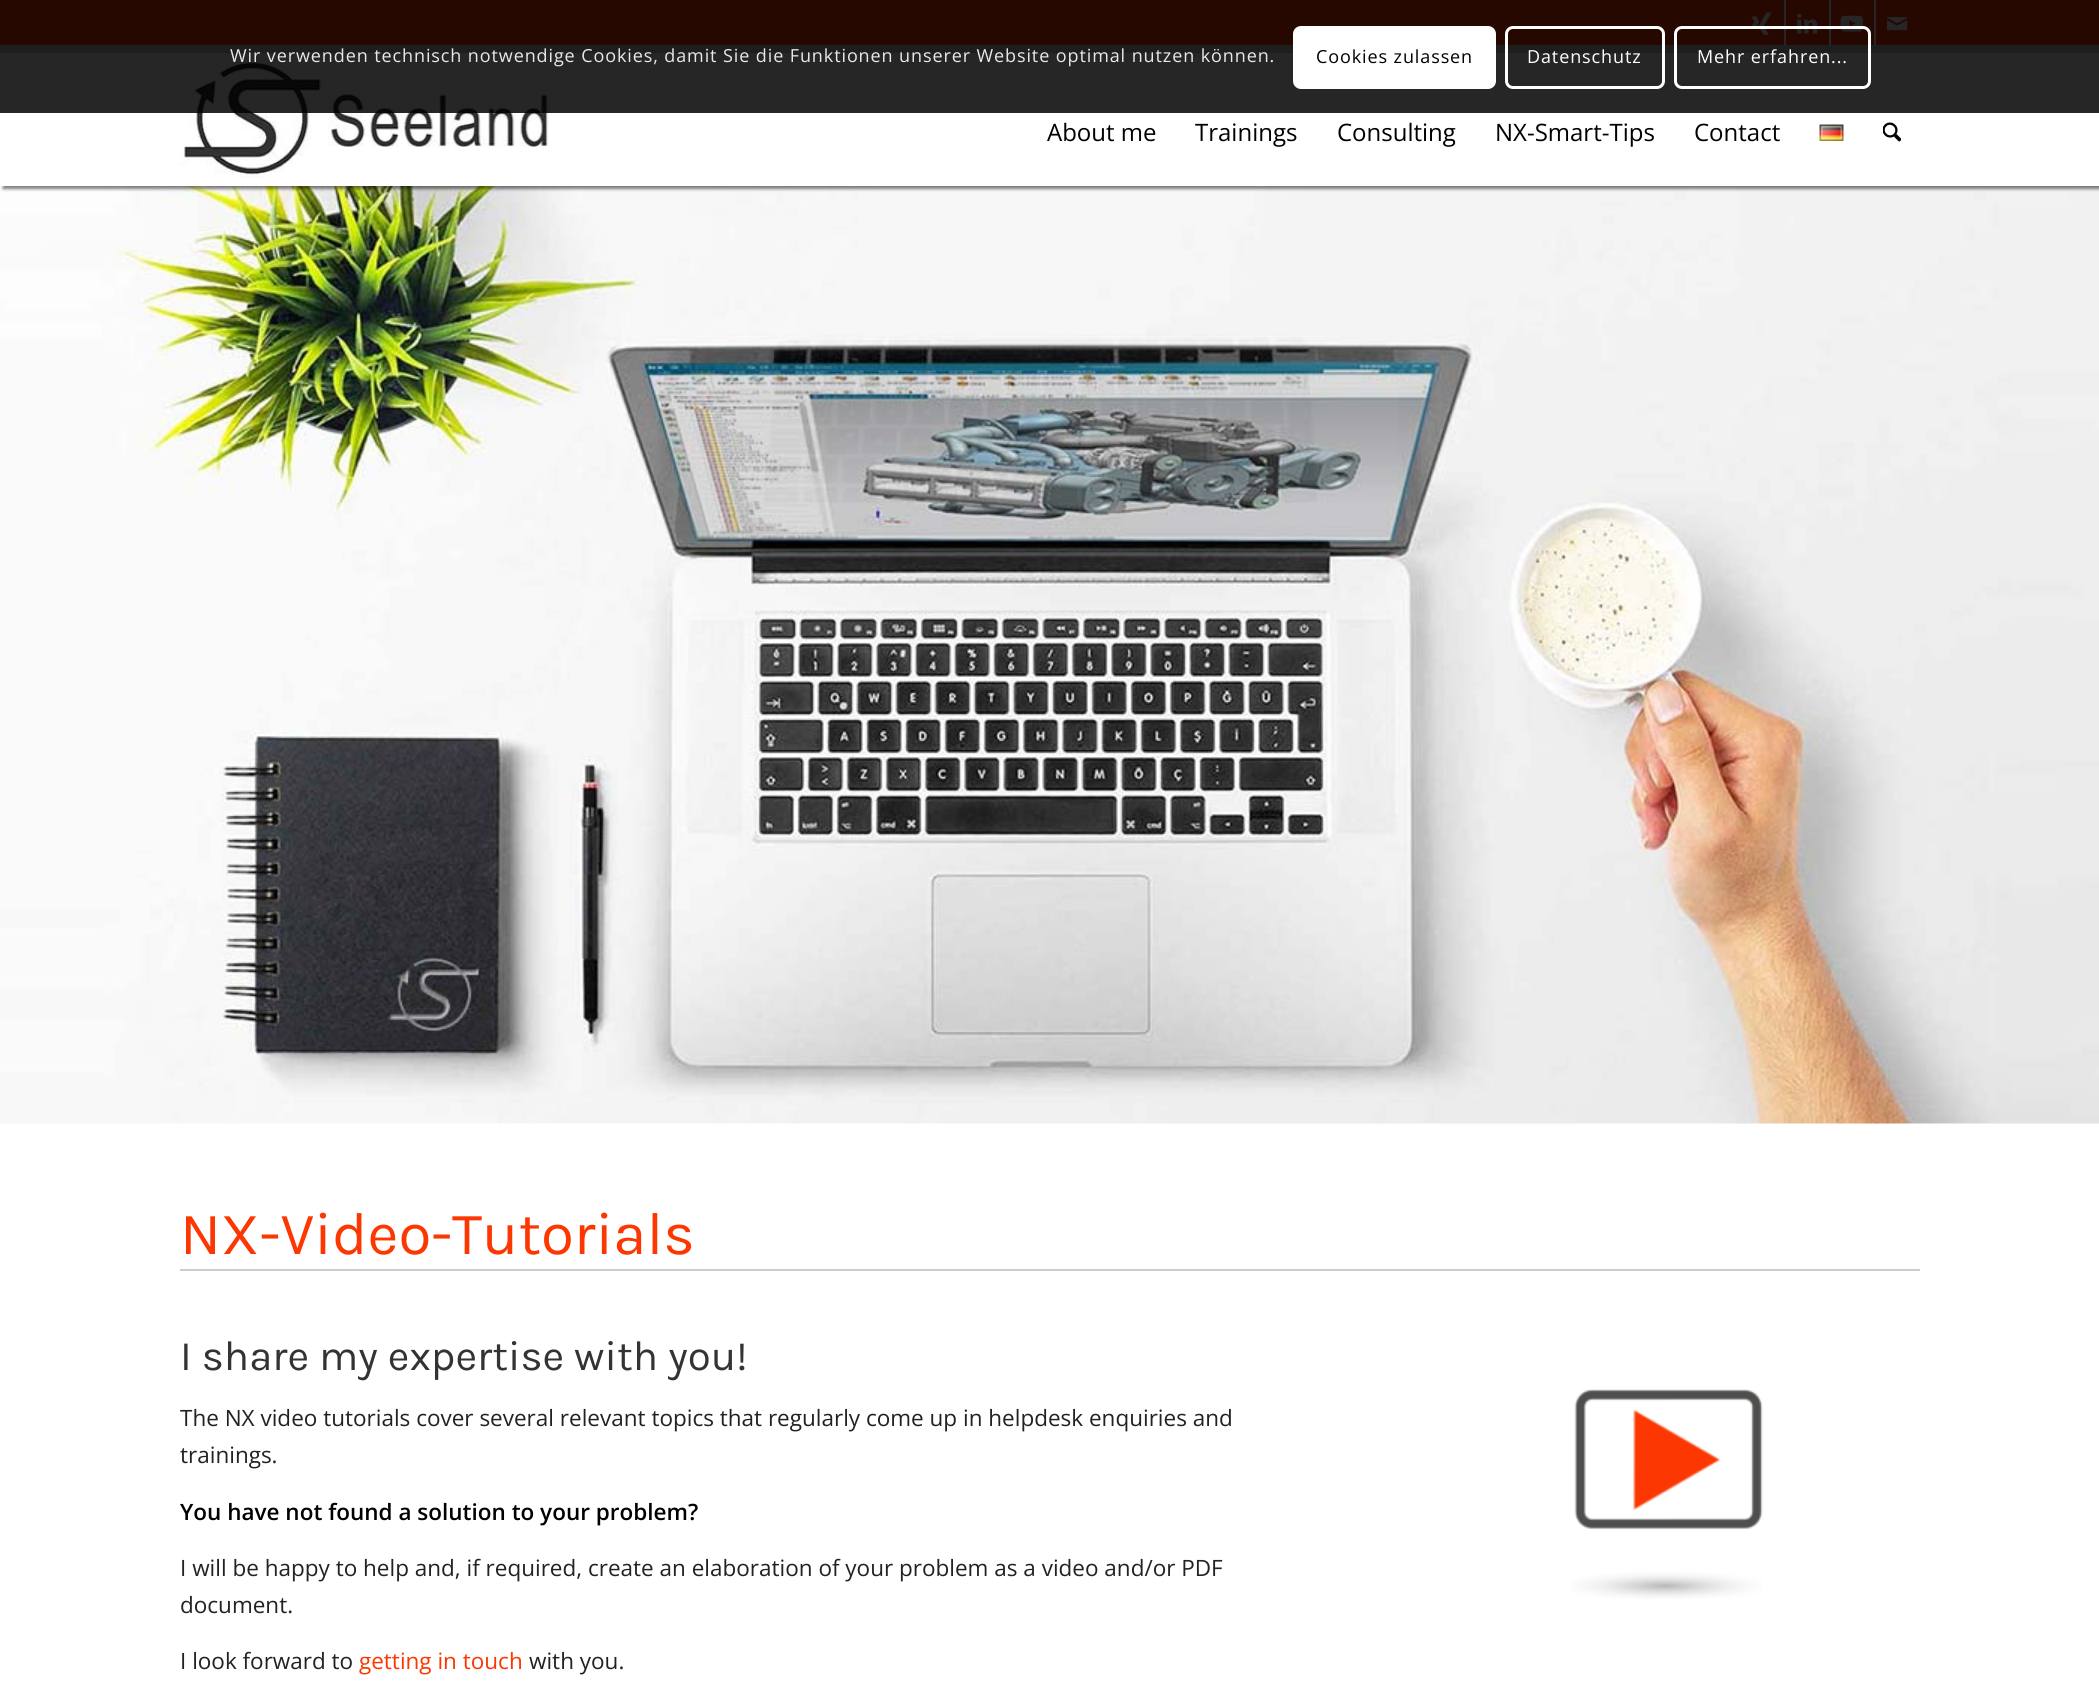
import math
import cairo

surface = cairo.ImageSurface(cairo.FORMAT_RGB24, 2099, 1698)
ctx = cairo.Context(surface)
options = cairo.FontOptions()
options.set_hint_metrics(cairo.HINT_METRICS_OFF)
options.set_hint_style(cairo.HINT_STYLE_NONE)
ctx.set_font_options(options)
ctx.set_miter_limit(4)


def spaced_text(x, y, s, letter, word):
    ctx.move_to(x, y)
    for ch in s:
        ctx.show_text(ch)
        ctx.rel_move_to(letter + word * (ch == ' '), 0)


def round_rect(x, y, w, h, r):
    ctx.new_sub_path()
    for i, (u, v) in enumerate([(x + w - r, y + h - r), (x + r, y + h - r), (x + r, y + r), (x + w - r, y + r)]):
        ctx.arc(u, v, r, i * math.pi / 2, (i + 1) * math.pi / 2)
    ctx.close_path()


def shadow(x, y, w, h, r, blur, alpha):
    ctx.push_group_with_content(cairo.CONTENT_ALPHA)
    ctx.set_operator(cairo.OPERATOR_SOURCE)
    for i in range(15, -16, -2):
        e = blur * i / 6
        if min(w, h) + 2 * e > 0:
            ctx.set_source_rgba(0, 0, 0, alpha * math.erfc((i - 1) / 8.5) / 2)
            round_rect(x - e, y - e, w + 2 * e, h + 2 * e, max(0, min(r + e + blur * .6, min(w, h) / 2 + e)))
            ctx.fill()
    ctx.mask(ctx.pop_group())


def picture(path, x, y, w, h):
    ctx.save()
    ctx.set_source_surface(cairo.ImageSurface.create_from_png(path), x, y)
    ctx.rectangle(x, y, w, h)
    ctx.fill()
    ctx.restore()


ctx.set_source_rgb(1, 1, 1)
ctx.paint()
picture("img8.png", 0, 186, 2099, 938)
ctx.set_source_rgb(0, 0, 0)
shadow(3, 3, 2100, 186, 0, 1.5, 0.5)
ctx.set_source_rgb(0.988, 0.216, 0)
ctx.rectangle(0, 0, 2099, 45)
ctx.fill()
ctx.set_source_rgb(0.8, 0.8, 0.8)
ctx.rectangle(0, 45, 2099, 8)
ctx.fill()
ctx.set_source_rgb(1, 1, 1)
ctx.rectangle(1784, 0, 2, 45)
ctx.fill()
picture("img1.png", 1751, 12, 21, 23)
ctx.rectangle(1829, 0, 2, 45)
ctx.fill()
picture("img2.png", 1797, 13, 21, 21)
ctx.rectangle(1874, 0, 2, 45)
ctx.fill()
picture("img3.png", 1840, 15, 23, 17)
picture("img4.png", 1887, 17, 21, 14)
ctx.rectangle(0, 53, 2099, 133)
ctx.fill()
picture("img5.png", 180, 60, 369, 118)
ctx.set_source_rgba(0, 0, 0, 0.85)
ctx.rectangle(0, 0, 2099, 113)
ctx.fill()
ctx.select_font_face("Open Sans")
ctx.set_font_size(18)
ctx.set_source_rgb(0.914, 0.914, 0.914)
spaced_text(230, 62, "Wir verwenden technisch notwendige Cookies, damit Sie die Funktionen unserer Website optimal nutzen können.", 0.9, 0)
ctx.set_source_rgb(1, 1, 1)
round_rect(1293, 26, 203, 63, 8)
ctx.fill()
ctx.set_source_rgb(0, 0, 0)
spaced_text(1316, 63, "Cookies zulassen", 0.9, 0)
round_rect(1506.5, 27.5, 157, 60, 6.5)
ctx.set_source_rgb(1, 1, 1)
ctx.set_line_width(3)
ctx.stroke()
spaced_text(1527, 63, "Datenschutz", 0.9, 0)
round_rect(1675.5, 27.5, 194, 60, 6.5)
ctx.stroke()
spaced_text(1697, 63, "Mehr erfahren...", 0.9, 0)
ctx.set_font_size(24)
ctx.set_source_rgb(0, 0, 0)
ctx.move_to(1047, 141)
ctx.show_text("About me")
ctx.move_to(1195, 141)
ctx.show_text("Trainings")
ctx.move_to(1337, 141)
ctx.show_text("Consulting")
ctx.move_to(1495, 141)
ctx.show_text("NX-Smart-Tips")
ctx.move_to(1694, 141)
ctx.show_text("Contact")
picture("img6.png", 1819, 124, 25, 17)
picture("img7.png", 1883, 122, 18, 20)
ctx.set_source_rgb(0.8, 0.8, 0.8)
ctx.rectangle(180, 1269, 1740, 2)
ctx.fill()
ctx.select_font_face("Karla")
ctx.set_font_size(60)
ctx.set_source_rgb(0.988, 0.216, 0.004)
ctx.move_to(180, 1254)
ctx.show_text("NX-Video-Tutorials")
ctx.set_font_size(42)
ctx.set_source_rgb(0.2, 0.2, 0.2)
ctx.move_to(180, 1370)
ctx.show_text("I share my expertise with you!")
ctx.select_font_face("Open Sans")
ctx.set_font_size(22.5)
ctx.set_source_rgb(0.133, 0.133, 0.133)
ctx.move_to(180, 1426)
ctx.show_text("The NX video tutorials cover several relevant topics that regularly come up in helpdesk enquiries and")
ctx.move_to(180, 1463)
ctx.show_text("trainings.")
ctx.select_font_face("Open Sans SemiBold")
ctx.set_source_rgb(0, 0, 0)
ctx.move_to(180, 1520)
ctx.show_text("You have not found a solution to your problem?")
ctx.select_font_face("Open Sans")
ctx.set_source_rgb(0.133, 0.133, 0.133)
ctx.move_to(180, 1576)
ctx.show_text("I will be happy to help and, if required, create an elaboration of your problem as a video and/or PDF")
ctx.move_to(180, 1613)
ctx.show_text("document.")
ctx.move_to(180, 1669)
ctx.show_text("I look forward to")
ctx.set_source_rgb(0.988, 0.216, 0.004)
ctx.move_to(359, 1669)
ctx.show_text("getting in touch")
ctx.set_source_rgb(0.133, 0.133, 0.133)
ctx.move_to(529, 1669)
ctx.show_text("with you.")
picture("img9.png", 1572, 1389, 191, 210)
surface.write_to_png("page.png")
